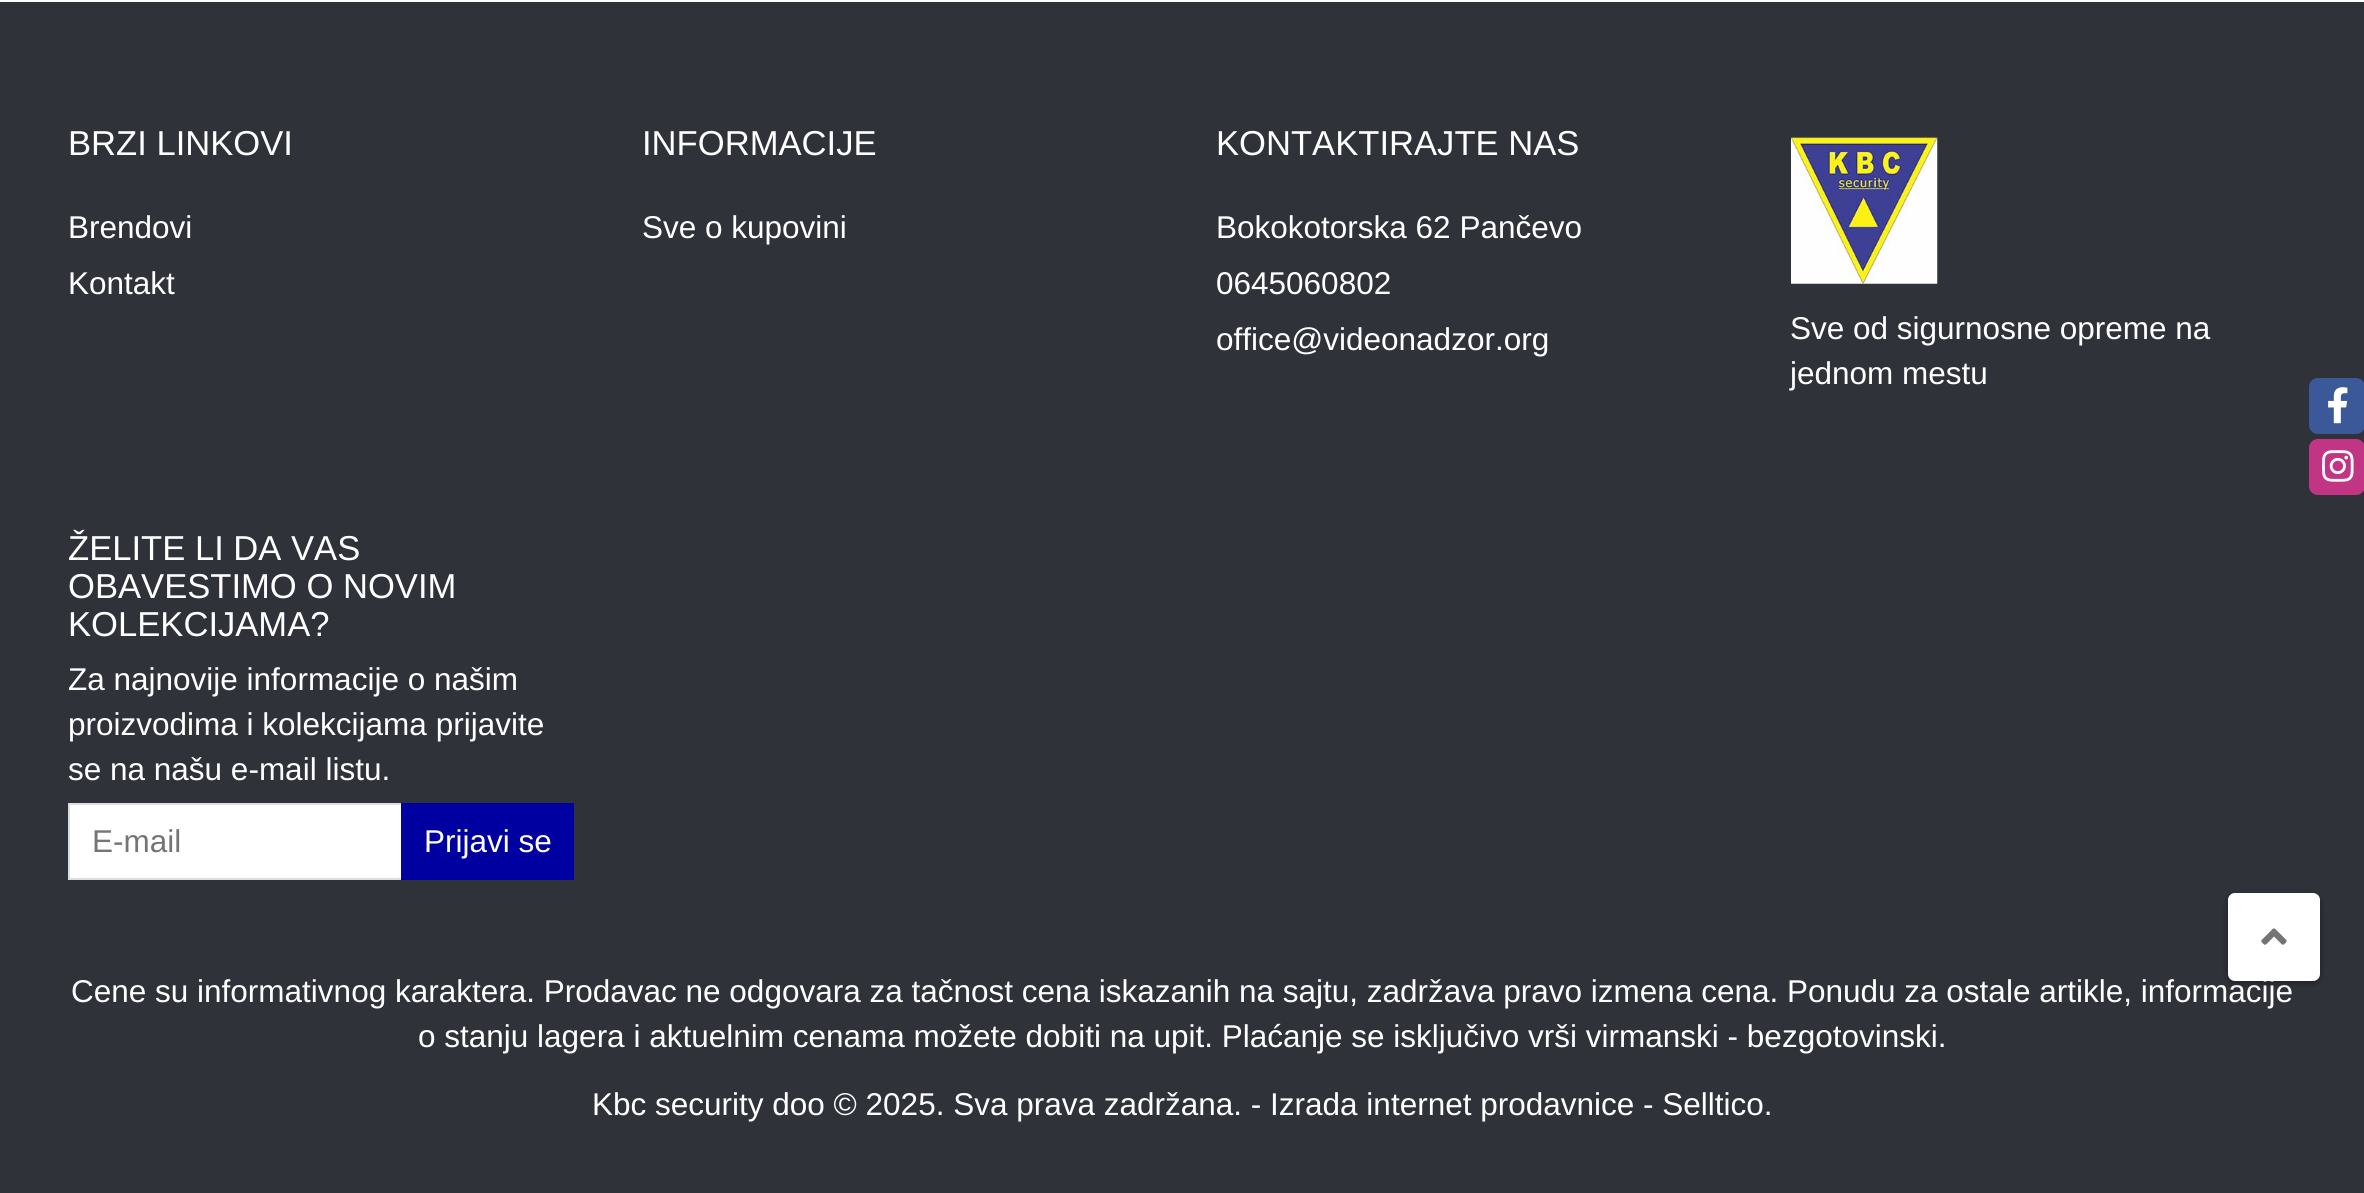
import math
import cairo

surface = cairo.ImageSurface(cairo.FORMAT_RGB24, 2364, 1193)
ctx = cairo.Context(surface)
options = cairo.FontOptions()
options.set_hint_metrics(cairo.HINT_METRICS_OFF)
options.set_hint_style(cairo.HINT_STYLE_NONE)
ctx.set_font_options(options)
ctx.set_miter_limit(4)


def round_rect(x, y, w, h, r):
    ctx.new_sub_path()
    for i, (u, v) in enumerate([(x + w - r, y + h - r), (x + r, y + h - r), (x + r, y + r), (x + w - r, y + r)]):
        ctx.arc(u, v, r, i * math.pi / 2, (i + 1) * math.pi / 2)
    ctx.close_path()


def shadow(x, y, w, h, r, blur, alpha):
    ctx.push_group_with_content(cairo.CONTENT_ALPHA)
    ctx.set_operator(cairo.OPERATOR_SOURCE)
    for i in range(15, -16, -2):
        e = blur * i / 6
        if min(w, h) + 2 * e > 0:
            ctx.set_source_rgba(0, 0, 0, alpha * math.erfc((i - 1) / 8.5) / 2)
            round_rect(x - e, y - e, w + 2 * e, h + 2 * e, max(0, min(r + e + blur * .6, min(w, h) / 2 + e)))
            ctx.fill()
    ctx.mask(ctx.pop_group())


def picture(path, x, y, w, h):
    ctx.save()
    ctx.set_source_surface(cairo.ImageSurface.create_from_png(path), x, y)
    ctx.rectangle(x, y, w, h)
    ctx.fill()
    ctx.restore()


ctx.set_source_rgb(1, 1, 1)
ctx.paint()
ctx.set_source_rgb(0.188, 0.196, 0.227)
ctx.rectangle(0, 2, 2364, 1191)
ctx.fill()
ctx.select_font_face("Liberation Sans")
ctx.set_font_size(34.6)
ctx.set_source_rgb(1, 1, 1)
ctx.move_to(68, 155)
ctx.show_text("BRZI LINKOVI")
ctx.set_font_size(31.5)
ctx.move_to(68, 238)
ctx.show_text("Brendovi")
ctx.move_to(68, 294)
ctx.show_text("Kontakt")
ctx.set_font_size(34.6)
ctx.move_to(642, 155)
ctx.show_text("INFORMACIJE")
ctx.set_font_size(31.5)
ctx.move_to(642, 238)
ctx.show_text("Sve o kupovini")
ctx.set_font_size(34.6)
ctx.move_to(1216, 155)
ctx.show_text("KONTAKTIRAJTE NAS")
ctx.set_font_size(31.5)
ctx.move_to(1216, 238)
ctx.show_text("Bokokotorska 62 Pančevo")
ctx.move_to(1216, 294)
ctx.show_text("0645060802")
ctx.move_to(1216, 350)
ctx.show_text("office@videonadzor.org")
picture("img1.png", 1791, 137, 147, 147)
ctx.move_to(1790, 339)
ctx.show_text("Sve od sigurnosne opreme na")
ctx.move_to(1790, 384)
ctx.show_text("jednom mestu")
ctx.set_font_size(34.6)
ctx.move_to(68, 560)
ctx.show_text("ŽELITE LI DA VAS")
ctx.move_to(68, 598)
ctx.show_text("OBAVESTIMO O NOVIM")
ctx.move_to(68, 636)
ctx.show_text("KOLEKCIJAMA?")
ctx.set_font_size(31.5)
ctx.move_to(68, 690)
ctx.show_text("Za najnovije informacije o našim")
ctx.move_to(68, 735)
ctx.show_text("proizvodima i kolekcijama prijavite")
ctx.move_to(68, 780)
ctx.show_text("se na našu e-mail listu.")
ctx.rectangle(70, 805, 331, 73)
ctx.fill()
ctx.rectangle(69, 804, 504, 75)
ctx.set_source_rgb(0.867, 0.867, 0.867)
ctx.stroke()
ctx.set_source_rgb(0.459, 0.459, 0.459)
ctx.move_to(92, 852)
ctx.show_text("E-mail")
ctx.set_source_rgb(0, 0, 0.627)
ctx.rectangle(401, 803, 173, 77)
ctx.fill()
ctx.set_source_rgb(1, 1, 1)
ctx.move_to(424, 852)
ctx.show_text("Prijavi se")
ctx.move_to(71, 1002)
ctx.show_text("Cene su informativnog karaktera. Prodavac ne odgovara za tačnost cena iskazanih na sajtu, zadržava pravo izmena cena. Ponudu za ostale artikle, informacije")
ctx.move_to(418, 1047)
ctx.show_text("o stanju lagera i aktuelnim cenama možete dobiti na upit. Plaćanje se isključivo vrši virmanski - bezgotovinski.")
ctx.move_to(592, 1115)
ctx.show_text("Kbc security doo © 2025. Sva prava zadržana. - Izrada internet prodavnice - Selltico.")
ctx.set_source_rgb(0, 0, 0)
shadow(2228, 896, 92, 87, 7, 3.5, 0.4)
ctx.set_source_rgb(1, 1, 1)
round_rect(2228, 893, 92, 88, 7)
ctx.fill()
picture("img2.png", 2261, 928, 26, 17)
ctx.set_source_rgb(0.231, 0.349, 0.6)
round_rect(2309, 378, 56, 56, 9)
ctx.fill()
picture("img3.png", 2328, 387, 20, 37)
ctx.set_source_rgb(0.757, 0.208, 0.518)
round_rect(2309, 439, 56, 56, 9)
ctx.fill()
picture("img4.png", 2322, 450, 32, 32)
surface.write_to_png("page.png")
